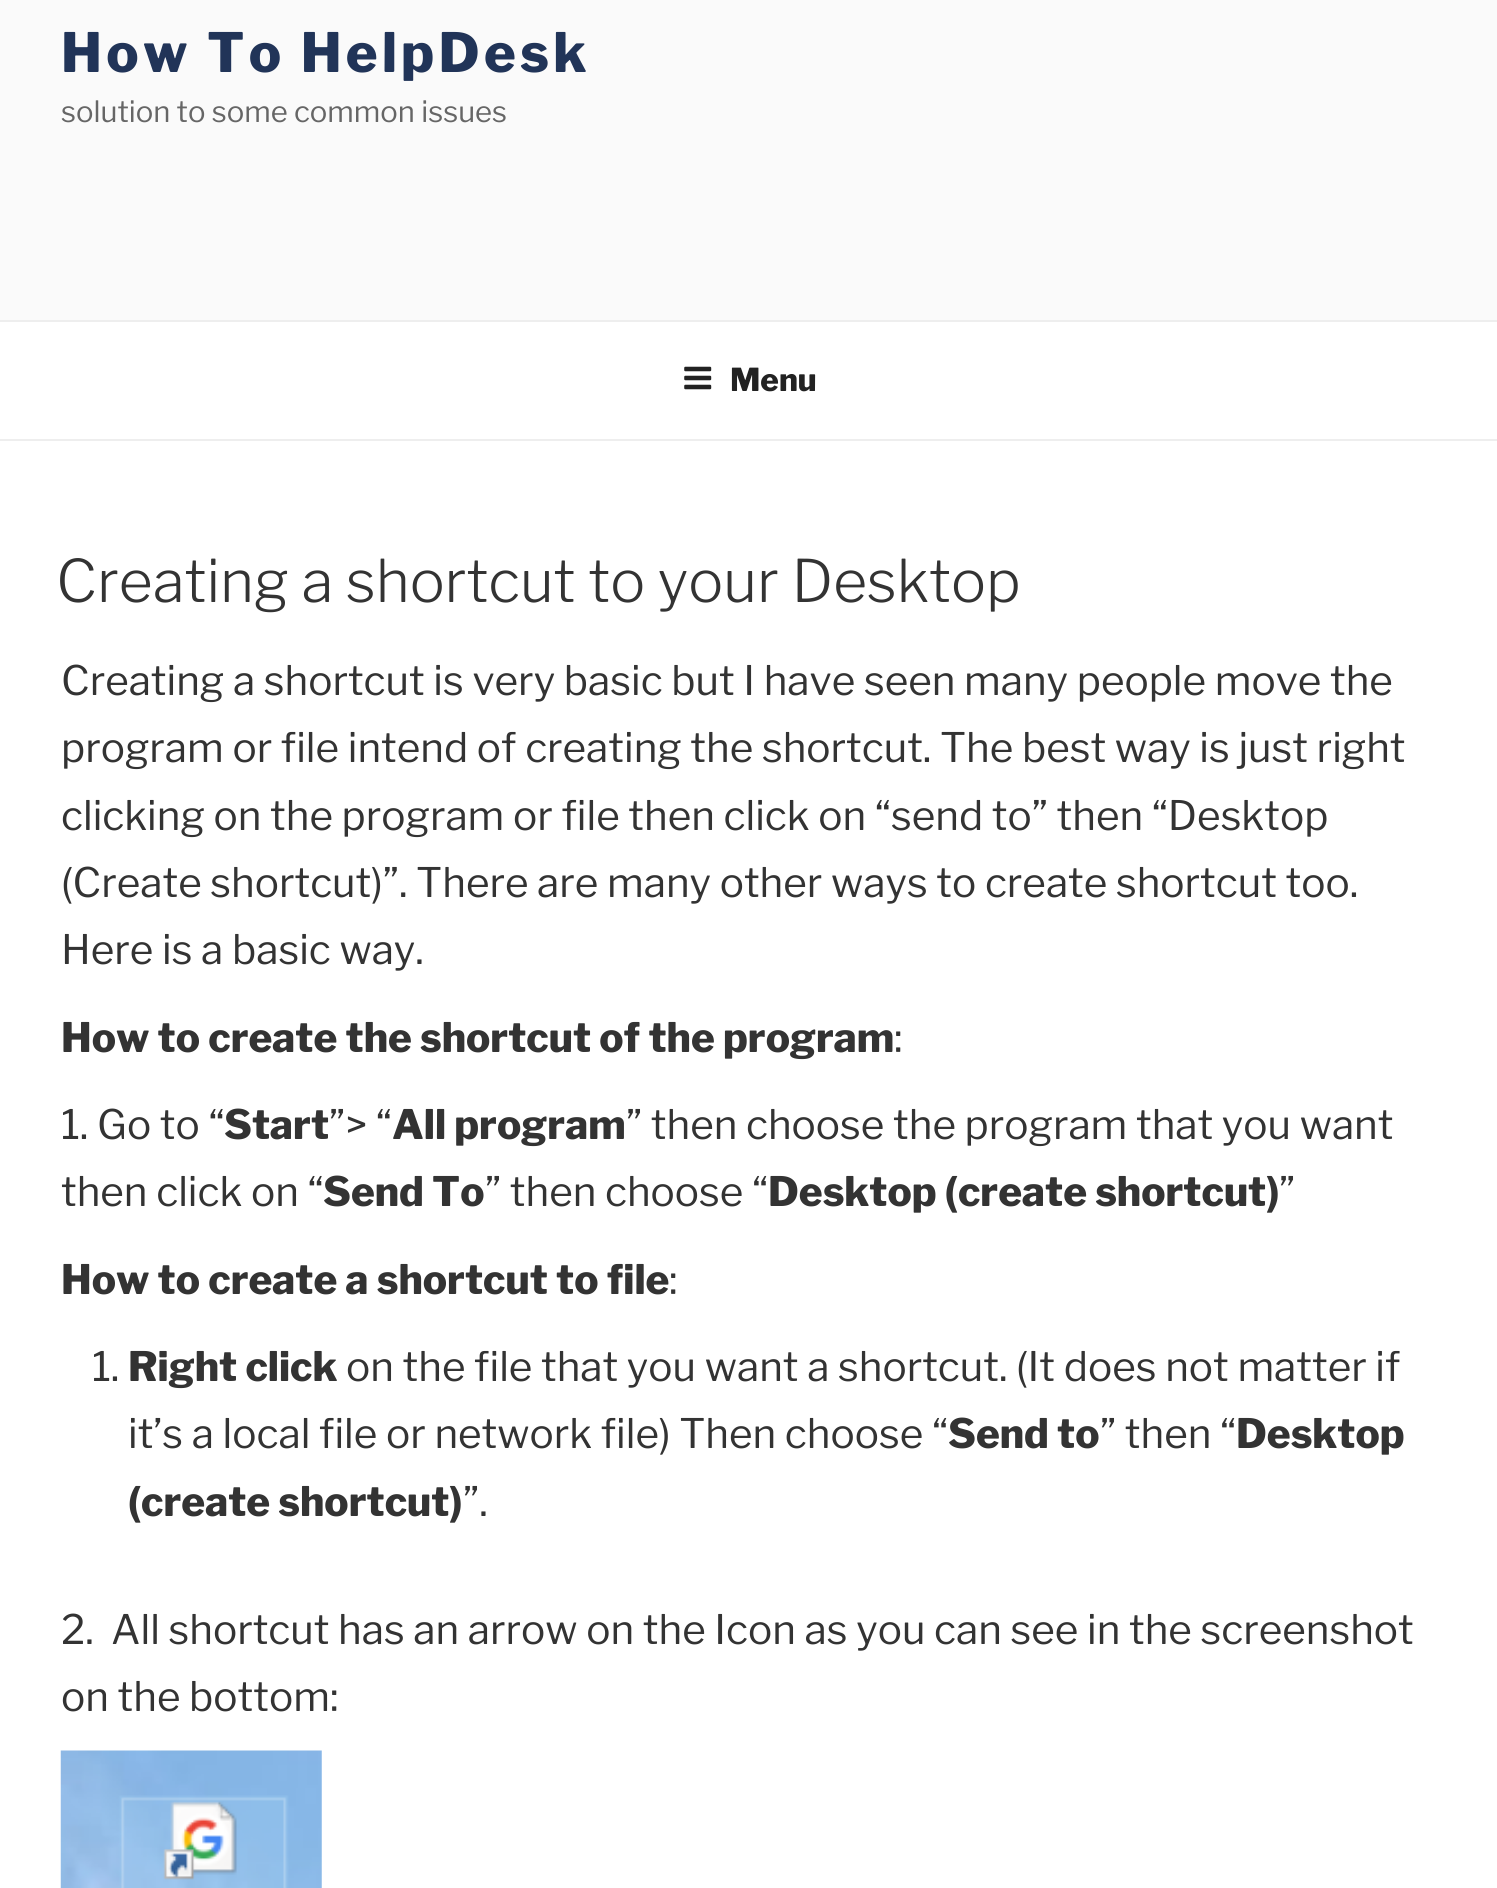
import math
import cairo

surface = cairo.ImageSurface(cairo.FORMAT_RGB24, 1497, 1888)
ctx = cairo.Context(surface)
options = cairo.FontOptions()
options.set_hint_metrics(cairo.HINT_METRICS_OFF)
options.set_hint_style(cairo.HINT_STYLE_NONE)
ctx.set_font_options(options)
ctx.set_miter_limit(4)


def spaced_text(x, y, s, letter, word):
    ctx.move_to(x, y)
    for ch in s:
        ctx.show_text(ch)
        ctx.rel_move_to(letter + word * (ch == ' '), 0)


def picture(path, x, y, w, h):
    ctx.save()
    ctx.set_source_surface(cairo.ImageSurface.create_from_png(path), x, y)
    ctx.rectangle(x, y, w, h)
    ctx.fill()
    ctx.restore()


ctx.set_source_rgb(1, 1, 1)
ctx.paint()
ctx.set_source_rgb(0.98, 0.98, 0.98)
ctx.rectangle(0, 0, 1497, 320)
ctx.fill()
ctx.select_font_face("Libre Franklin ExtraBold")
ctx.set_font_size(54)
ctx.set_source_rgb(0.129, 0.204, 0.345)
spaced_text(61, 72, "How To HelpDesk", 4.3, 0)
ctx.select_font_face("Libre Franklin")
ctx.set_font_size(29.25)
ctx.set_source_rgb(0.4, 0.4, 0.4)
ctx.move_to(61, 122)
ctx.show_text("solution to some common issues")
ctx.set_source_rgb(0.933, 0.933, 0.933)
ctx.rectangle(0, 320, 1497, 2)
ctx.fill()
ctx.rectangle(0, 439, 1497, 2)
ctx.fill()
picture("img1.png", 684, 366, 28, 24)
ctx.select_font_face("Libre Franklin ExtraBold")
ctx.set_font_size(31.5)
ctx.set_source_rgb(0.133, 0.133, 0.133)
ctx.move_to(730, 391)
ctx.show_text("Menu")
ctx.select_font_face("Libre Franklin Light")
ctx.set_font_size(58.5)
ctx.set_source_rgb(0.2, 0.2, 0.2)
ctx.move_to(56, 602)
ctx.show_text("Creating a shortcut to your Desktop")
ctx.select_font_face("Libre Franklin")
ctx.set_font_size(40.5)
ctx.move_to(61, 695)
ctx.show_text("Creating a shortcut is very basic but I have seen many people move the")
ctx.move_to(61, 762)
ctx.show_text("program or file intend of creating the shortcut. The best way is just right")
ctx.move_to(61, 830)
ctx.show_text("clicking on the program or file then click on “send to” then “Desktop")
ctx.move_to(61, 897)
ctx.show_text("(Create shortcut)”. There are many other ways to create shortcut too.")
ctx.move_to(61, 964)
ctx.show_text("Here is a basic way.")
ctx.select_font_face("Libre Franklin ExtraBold")
ctx.move_to(61, 1052)
ctx.show_text("How to create the shortcut of the program")
ctx.select_font_face("Libre Franklin")
ctx.move_to(894, 1052)
ctx.show_text(":")
ctx.move_to(61, 1139)
ctx.show_text("1. Go to “")
ctx.select_font_face("Libre Franklin ExtraBold")
ctx.move_to(224, 1139)
ctx.show_text("Start")
ctx.select_font_face("Libre Franklin")
ctx.move_to(329, 1139)
ctx.show_text("”> “")
ctx.select_font_face("Libre Franklin ExtraBold")
ctx.move_to(392, 1139)
ctx.show_text("All program")
ctx.select_font_face("Libre Franklin")
ctx.move_to(626, 1139)
ctx.show_text("” then choose the program that you want")
ctx.move_to(61, 1206)
ctx.show_text("then click on “")
ctx.select_font_face("Libre Franklin ExtraBold")
ctx.move_to(323, 1206)
ctx.show_text("Send To")
ctx.select_font_face("Libre Franklin")
ctx.move_to(485, 1206)
ctx.show_text("” then choose “")
ctx.select_font_face("Libre Franklin ExtraBold")
ctx.move_to(768, 1206)
ctx.show_text("Desktop (create shortcut)")
ctx.select_font_face("Libre Franklin")
ctx.move_to(1279, 1206)
ctx.show_text("”")
ctx.select_font_face("Libre Franklin ExtraBold")
ctx.move_to(61, 1294)
ctx.show_text("How to create a shortcut to file")
ctx.select_font_face("Libre Franklin")
ctx.move_to(669, 1294)
ctx.show_text(":")
ctx.move_to(92, 1381)
ctx.show_text("1.")
ctx.select_font_face("Libre Franklin ExtraBold")
ctx.move_to(128, 1381)
ctx.show_text("Right click")
ctx.select_font_face("Libre Franklin")
ctx.move_to(346, 1381)
ctx.show_text("on the file that you want a shortcut. (It does not matter if")
ctx.move_to(128, 1448)
ctx.show_text("it’s a local file or network file) Then choose “")
ctx.select_font_face("Libre Franklin ExtraBold")
ctx.move_to(948, 1448)
ctx.show_text("Send to")
ctx.select_font_face("Libre Franklin")
ctx.move_to(1100, 1448)
ctx.show_text("” then “")
ctx.select_font_face("Libre Franklin ExtraBold")
ctx.move_to(1236, 1448)
ctx.show_text("Desktop")
ctx.move_to(128, 1516)
ctx.show_text("(create shortcut)")
ctx.select_font_face("Libre Franklin")
ctx.move_to(463, 1516)
ctx.show_text("”.")
ctx.move_to(61, 1644)
ctx.show_text("2.  All shortcut has an arrow on the Icon as you can see in the screenshot")
ctx.move_to(61, 1711)
ctx.show_text("on the bottom:")
picture("img2.png", 60, 1750, 262, 138)
surface.write_to_png("page.png")
